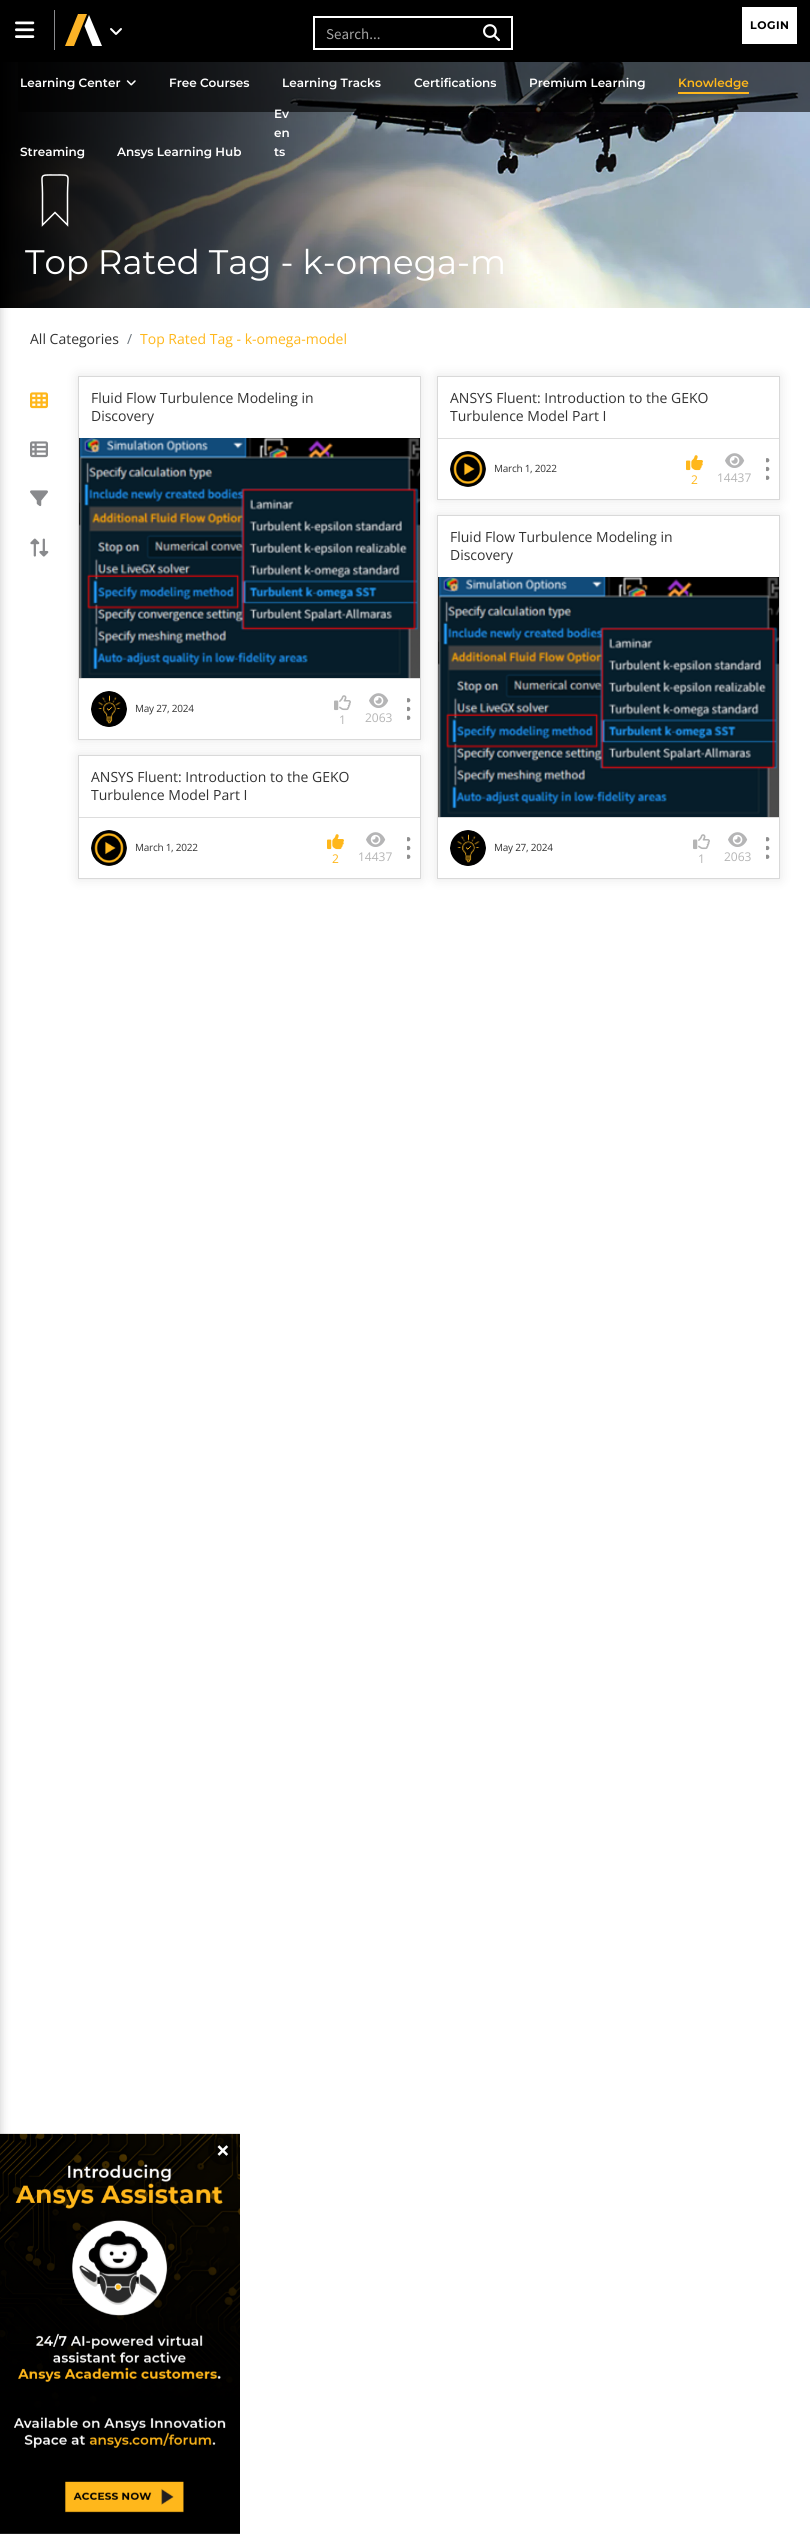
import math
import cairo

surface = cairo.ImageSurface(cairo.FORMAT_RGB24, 810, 2534)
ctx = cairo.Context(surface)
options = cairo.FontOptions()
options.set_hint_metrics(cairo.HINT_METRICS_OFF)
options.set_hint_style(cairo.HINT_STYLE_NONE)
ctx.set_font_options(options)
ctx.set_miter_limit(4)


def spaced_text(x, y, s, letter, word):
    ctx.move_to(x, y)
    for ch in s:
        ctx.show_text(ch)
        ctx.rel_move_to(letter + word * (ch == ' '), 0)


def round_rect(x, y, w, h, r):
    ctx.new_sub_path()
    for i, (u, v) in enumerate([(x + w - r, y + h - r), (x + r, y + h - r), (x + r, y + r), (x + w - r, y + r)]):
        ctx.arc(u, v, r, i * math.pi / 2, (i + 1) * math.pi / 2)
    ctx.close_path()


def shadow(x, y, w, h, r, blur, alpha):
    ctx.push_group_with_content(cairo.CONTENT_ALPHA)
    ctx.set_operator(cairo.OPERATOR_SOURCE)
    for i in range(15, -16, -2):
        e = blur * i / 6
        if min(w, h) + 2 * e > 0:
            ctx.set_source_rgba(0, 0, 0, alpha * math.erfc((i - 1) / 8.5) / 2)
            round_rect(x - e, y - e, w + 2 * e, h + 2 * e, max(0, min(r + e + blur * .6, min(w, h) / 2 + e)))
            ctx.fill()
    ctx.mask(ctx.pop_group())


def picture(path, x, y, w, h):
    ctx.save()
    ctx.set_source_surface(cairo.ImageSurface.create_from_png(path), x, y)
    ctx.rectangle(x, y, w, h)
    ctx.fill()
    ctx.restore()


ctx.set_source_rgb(1, 1, 1)
ctx.paint()
ctx.set_source_rgb(0, 0, 0)
ctx.rectangle(0, 0, 810, 62)
ctx.fill()
picture("img1.png", 15, 21, 20, 17)
ctx.set_source_rgb(0.537, 0.541, 0.553)
ctx.rectangle(54, 10, 1, 40)
ctx.fill()
ctx.set_source_rgb(0.988, 0.702, 0.149)
ctx.new_path()
ctx.move_to(65, 46)
ctx.line_to(78, 14)
ctx.line_to(87, 14)
ctx.line_to(74, 46)
ctx.close_path()
ctx.fill()
ctx.set_source_rgb(1, 1, 1)
ctx.new_path()
ctx.move_to(102, 46)
ctx.line_to(92.5, 46)
ctx.line_to(84.5, 26)
ctx.line_to(89, 15)
ctx.close_path()
ctx.fill()
picture("img2.png", 110, 28, 12, 7)
ctx.rectangle(742, 7, 55, 37)
ctx.fill()
ctx.select_font_face("Montserrat", cairo.FONT_SLANT_NORMAL, cairo.FONT_WEIGHT_BOLD)
ctx.set_font_size(11)
ctx.set_source_rgb(0, 0, 0)
spaced_text(750, 29, "LOGIN", 0.5, 0)
ctx.rectangle(314, 17, 198, 32)
ctx.set_source_rgb(1, 1, 1)
ctx.stroke()
ctx.select_font_face("Source Sans Pro")
ctx.set_font_size(15)
ctx.set_source_rgb(0.643, 0.643, 0.643)
ctx.move_to(326, 39)
ctx.show_text("Search...")
picture("img3.png", 483, 24, 17, 18)
picture("img5.png", 0, 62, 810, 246)
picture("img20.png", 0, 2133, 240, 401)
ctx.set_source_rgb(0, 0, 0)
shadow(-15, 55, 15, 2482, 0, 5, 0.22)
ctx.set_source_rgba(0, 0, 0, 0.6)
ctx.rectangle(18, 62, 792, 50)
ctx.fill()
ctx.select_font_face("Montserrat SemiBold")
ctx.set_font_size(12)
ctx.set_source_rgb(1, 1, 1)
ctx.move_to(20, 87)
ctx.show_text("Learning Center")
picture("img4.png", 126, 80, 10, 6)
ctx.move_to(169, 87)
ctx.show_text("Free Courses")
ctx.move_to(282, 87)
ctx.show_text("Learning Tracks")
ctx.move_to(414, 87)
ctx.show_text("Certifications")
ctx.move_to(529, 87)
ctx.show_text("Premium Learning")
ctx.set_source_rgb(1, 0.718, 0.106)
ctx.move_to(678, 87)
ctx.show_text("Knowledge")
ctx.rectangle(678, 92, 71, 2)
ctx.fill()
ctx.set_source_rgb(1, 1, 1)
ctx.move_to(20, 156)
ctx.show_text("Streaming")
ctx.move_to(117, 156)
ctx.show_text("Ansys Learning Hub")
ctx.move_to(274, 118)
ctx.show_text("Ev")
ctx.move_to(274, 137)
ctx.show_text("en")
ctx.move_to(274, 156)
ctx.show_text("ts")
ctx.new_path()
ctx.move_to(67.5, 225)
ctx.line_to(67.5, 193.5)
ctx.curve_to(67.5, 173.5, 72, 175, 55, 175)
ctx.curve_to(38, 175, 42.5, 173.5, 42.5, 193.5)
ctx.line_to(42.5, 225)
ctx.line_to(55, 212.5)
ctx.close_path()
ctx.set_line_width(1.5)
ctx.stroke()
ctx.select_font_face("Montserrat")
ctx.set_font_size(34)
ctx.move_to(25, 274)
ctx.show_text("Top Rated Tag - k-omega-m")
ctx.select_font_face("Open Sans")
ctx.set_font_size(14)
ctx.set_source_rgb(0.2, 0.2, 0.2)
ctx.move_to(30, 344)
ctx.show_text("All Categories")
ctx.set_source_rgb(0.424, 0.459, 0.49)
ctx.move_to(127, 344)
ctx.show_text("/")
ctx.set_source_rgb(1, 0.718, 0.106)
ctx.move_to(140, 344)
ctx.show_text("Top Rated Tag - k-omega-model")
picture("img6.png", 30, 392, 18, 17)
picture("img7.png", 30, 441, 18, 17)
picture("img8.png", 30, 490, 18, 17)
picture("img9.png", 30, 538, 19, 19)
ctx.save()
ctx.set_fill_rule(cairo.FILL_RULE_EVEN_ODD)
ctx.new_path()
ctx.move_to(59, 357)
ctx.line_to(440, 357)
ctx.line_to(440, 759)
ctx.line_to(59, 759)
ctx.close_path()
ctx.move_to(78, 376)
ctx.line_to(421, 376)
ctx.line_to(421, 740)
ctx.line_to(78, 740)
ctx.close_path()
ctx.clip()
ctx.set_source_rgb(0, 0, 0)
shadow(78, 376, 343, 364, 0, 6, 0.1)
ctx.restore()
ctx.rectangle(78.5, 376.5, 342, 363)
ctx.set_source_rgb(0.851, 0.851, 0.851)
ctx.set_line_width(1)
ctx.stroke()
ctx.set_source_rgb(0.2, 0.2, 0.2)
ctx.move_to(91, 403)
ctx.show_text("Fluid Flow Turbulence Modeling in")
ctx.move_to(91, 421)
ctx.show_text("Discovery")
picture("img10.png", 79, 438, 341, 240)
ctx.set_source_rgb(0.867, 0.867, 0.867)
ctx.rectangle(79, 678, 341, 1)
ctx.fill()
picture("img11.png", 91, 691, 36, 36)
ctx.set_font_size(10)
ctx.set_source_rgb(0.2, 0.2, 0.2)
spaced_text(135, 712, "May 27, 2024", -0.25, 0)
picture("img12.png", 334, 695, 17, 16)
ctx.set_font_size(12)
ctx.set_source_rgb(0.71, 0.71, 0.71)
ctx.move_to(339, 724)
ctx.show_text("1")
picture("img13.png", 369, 693, 20, 15)
ctx.move_to(365, 722)
ctx.show_text("2063")
picture("img14.png", 407, 698, 4, 22)
ctx.save()
ctx.set_fill_rule(cairo.FILL_RULE_EVEN_ODD)
ctx.new_path()
ctx.move_to(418, 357)
ctx.line_to(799, 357)
ctx.line_to(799, 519)
ctx.line_to(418, 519)
ctx.close_path()
ctx.move_to(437, 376)
ctx.line_to(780, 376)
ctx.line_to(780, 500)
ctx.line_to(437, 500)
ctx.close_path()
ctx.clip()
ctx.set_source_rgb(0, 0, 0)
shadow(437, 376, 343, 124, 0, 6, 0.1)
ctx.restore()
ctx.rectangle(437.5, 376.5, 342, 123)
ctx.set_source_rgb(0.851, 0.851, 0.851)
ctx.stroke()
ctx.set_font_size(14)
ctx.set_source_rgb(0.2, 0.2, 0.2)
ctx.move_to(450, 403)
ctx.show_text("ANSYS Fluent: Introduction to the GEKO")
ctx.move_to(450, 421)
ctx.show_text("Turbulence Model Part I")
ctx.set_source_rgb(0.867, 0.867, 0.867)
ctx.rectangle(438, 438, 341, 1)
ctx.fill()
picture("img15.png", 450, 451, 36, 36)
ctx.set_font_size(10)
ctx.set_source_rgb(0.2, 0.2, 0.2)
spaced_text(494, 472, "March 1, 2022", -0.25, 0)
picture("img16.png", 686, 455, 17, 16)
ctx.set_font_size(12)
ctx.set_source_rgb(1, 0.718, 0.106)
ctx.move_to(691, 484)
ctx.show_text("2")
picture("img13.png", 725, 453, 20, 15)
ctx.set_source_rgb(0.71, 0.71, 0.71)
ctx.move_to(717, 482)
ctx.show_text("14437")
picture("img14.png", 766, 458, 4, 22)
ctx.save()
ctx.set_fill_rule(cairo.FILL_RULE_EVEN_ODD)
ctx.new_path()
ctx.move_to(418, 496)
ctx.line_to(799, 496)
ctx.line_to(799, 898)
ctx.line_to(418, 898)
ctx.close_path()
ctx.move_to(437, 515)
ctx.line_to(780, 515)
ctx.line_to(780, 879)
ctx.line_to(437, 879)
ctx.close_path()
ctx.clip()
ctx.set_source_rgb(0, 0, 0)
shadow(437, 515, 343, 364, 0, 6, 0.1)
ctx.restore()
ctx.rectangle(437.5, 515.5, 342, 363)
ctx.set_source_rgb(0.851, 0.851, 0.851)
ctx.stroke()
picture("img18.png", 438, 577, 341, 240)
ctx.set_source_rgb(0.867, 0.867, 0.867)
ctx.rectangle(438, 817, 341, 1)
ctx.fill()
ctx.save()
ctx.set_fill_rule(cairo.FILL_RULE_EVEN_ODD)
ctx.new_path()
ctx.move_to(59, 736)
ctx.line_to(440, 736)
ctx.line_to(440, 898)
ctx.line_to(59, 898)
ctx.close_path()
ctx.move_to(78, 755)
ctx.line_to(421, 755)
ctx.line_to(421, 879)
ctx.line_to(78, 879)
ctx.close_path()
ctx.clip()
ctx.set_source_rgb(0, 0, 0)
shadow(78, 755, 343, 124, 0, 6, 0.1)
ctx.restore()
ctx.rectangle(78.5, 755.5, 342, 123)
ctx.set_source_rgb(0.851, 0.851, 0.851)
ctx.stroke()
ctx.set_font_size(14)
ctx.set_source_rgb(0.2, 0.2, 0.2)
ctx.move_to(91, 782)
ctx.show_text("ANSYS Fluent: Introduction to the GEKO")
ctx.move_to(91, 800)
ctx.show_text("Turbulence Model Part I")
ctx.set_source_rgb(0.867, 0.867, 0.867)
ctx.rectangle(79, 817, 341, 1)
ctx.fill()
picture("img17.png", 91, 830, 36, 36)
ctx.set_font_size(10)
ctx.set_source_rgb(0.2, 0.2, 0.2)
spaced_text(135, 851, "March 1, 2022", -0.25, 0)
picture("img16.png", 327, 834, 17, 16)
ctx.set_font_size(12)
ctx.set_source_rgb(1, 0.718, 0.106)
ctx.move_to(332, 863)
ctx.show_text("2")
picture("img13.png", 366, 832, 20, 15)
ctx.set_source_rgb(0.71, 0.71, 0.71)
ctx.move_to(358, 861)
ctx.show_text("14437")
picture("img14.png", 407, 837, 4, 22)
ctx.set_font_size(14)
ctx.set_source_rgb(0.2, 0.2, 0.2)
ctx.move_to(450, 542)
ctx.show_text("Fluid Flow Turbulence Modeling in")
ctx.move_to(450, 560)
ctx.show_text("Discovery")
picture("img19.png", 450, 830, 36, 36)
ctx.set_font_size(10)
spaced_text(494, 851, "May 27, 2024", -0.25, 0)
picture("img12.png", 693, 834, 17, 16)
ctx.set_font_size(12)
ctx.set_source_rgb(0.71, 0.71, 0.71)
ctx.move_to(698, 863)
ctx.show_text("1")
picture("img13.png", 728, 832, 20, 15)
ctx.move_to(724, 861)
ctx.show_text("2063")
picture("img14.png", 766, 837, 4, 22)
ctx.set_source_rgba(0, 0, 0, 0.5)
ctx.arc(223, 2150, 15, 0, 2 * math.pi)
ctx.fill()
ctx.select_font_face("Open Sans", cairo.FONT_SLANT_NORMAL, cairo.FONT_WEIGHT_BOLD)
ctx.set_font_size(24)
ctx.set_source_rgb(1, 1, 1)
ctx.move_to(216, 2159)
ctx.show_text("×")
surface.write_to_png("page.png")
